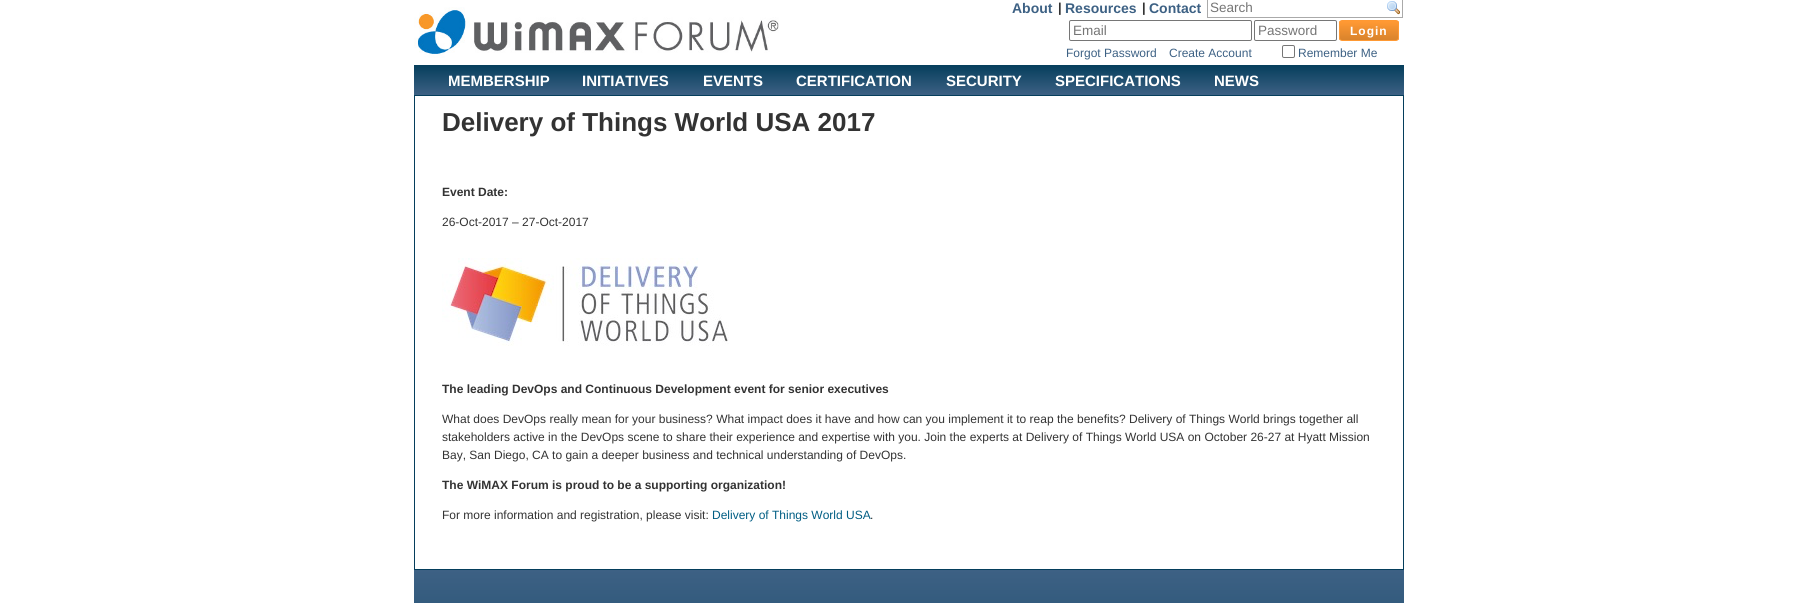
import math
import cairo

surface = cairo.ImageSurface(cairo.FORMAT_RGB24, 1817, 603)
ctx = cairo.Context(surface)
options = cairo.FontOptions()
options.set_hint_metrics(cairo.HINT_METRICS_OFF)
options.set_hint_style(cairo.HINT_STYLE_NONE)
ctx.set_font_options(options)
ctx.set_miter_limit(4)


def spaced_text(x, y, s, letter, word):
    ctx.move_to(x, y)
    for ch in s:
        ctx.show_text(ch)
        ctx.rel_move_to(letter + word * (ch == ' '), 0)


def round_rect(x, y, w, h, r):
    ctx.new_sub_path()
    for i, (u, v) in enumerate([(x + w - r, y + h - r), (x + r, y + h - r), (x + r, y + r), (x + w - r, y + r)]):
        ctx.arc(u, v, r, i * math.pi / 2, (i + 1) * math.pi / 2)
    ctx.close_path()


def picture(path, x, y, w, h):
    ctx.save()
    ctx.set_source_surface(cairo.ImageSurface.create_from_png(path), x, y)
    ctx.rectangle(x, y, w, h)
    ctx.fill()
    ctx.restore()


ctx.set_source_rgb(1, 1, 1)
ctx.paint()
picture("img1.png", 414, 7, 365, 51)
ctx.select_font_face("Liberation Sans", cairo.FONT_SLANT_NORMAL, cairo.FONT_WEIGHT_BOLD)
ctx.set_font_size(14)
ctx.set_source_rgb(0.239, 0.38, 0.518)
ctx.move_to(1012, 13)
ctx.show_text("About")
ctx.set_font_size(13)
ctx.set_source_rgb(0.2, 0.2, 0.2)
ctx.move_to(1058, 12)
ctx.show_text("|")
ctx.set_font_size(14)
ctx.set_source_rgb(0.239, 0.38, 0.518)
ctx.move_to(1065, 13)
ctx.show_text("Resources")
ctx.set_font_size(13)
ctx.set_source_rgb(0.2, 0.2, 0.2)
ctx.move_to(1142, 12)
ctx.show_text("|")
ctx.set_font_size(14)
ctx.set_source_rgb(0.239, 0.38, 0.518)
ctx.move_to(1149, 13)
ctx.show_text("Contact")
picture("img2.png", 1387, 1, 13, 14)
ctx.rectangle(1207.5, -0.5, 195, 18)
ctx.set_source_rgb(0.667, 0.667, 0.667)
ctx.set_line_width(1)
ctx.stroke()
ctx.select_font_face("Liberation Sans")
ctx.set_font_size(13.5)
ctx.set_source_rgb(0.459, 0.459, 0.459)
ctx.move_to(1210, 12)
ctx.show_text("Search")
round_rect(1069.5, 20.5, 182, 20, 1.5)
ctx.set_source_rgb(0.463, 0.463, 0.463)
ctx.stroke()
ctx.set_source_rgb(0.459, 0.459, 0.459)
ctx.move_to(1073, 35)
ctx.show_text("Email")
round_rect(1254.5, 20.5, 82, 20, 1.5)
ctx.set_source_rgb(0.463, 0.463, 0.463)
ctx.stroke()
ctx.set_source_rgb(0.459, 0.459, 0.459)
ctx.move_to(1258, 35)
ctx.show_text("Password")
ctx.save()
round_rect(1339, 20, 60, 21, 3)
ctx.clip()
gradient = cairo.LinearGradient(1340, 21, 1340, 40)
gradient.add_color_stop_rgba(0.05, 1, 0.6, 0.2, 1)
gradient.add_color_stop_rgba(1, 0.851, 0.514, 0.173, 1)
ctx.set_source(gradient)
ctx.rectangle(1339, 21, 60, 19)
ctx.fill()
ctx.restore()
round_rect(1339.5, 20.5, 59, 20, 2.5)
ctx.set_source_rgb(1, 0.6, 0.2)
ctx.stroke()
ctx.select_font_face("Liberation Sans", cairo.FONT_SLANT_NORMAL, cairo.FONT_WEIGHT_BOLD)
ctx.set_font_size(12)
ctx.set_source_rgb(1, 1, 1)
spaced_text(1350, 35, "Login", 1, 0)
ctx.select_font_face("Liberation Sans")
ctx.set_source_rgb(0.239, 0.38, 0.518)
ctx.move_to(1066, 57)
ctx.show_text("Forgot Password")
ctx.move_to(1169, 57)
ctx.show_text("Create Account")
round_rect(1282.5, 45.5, 12, 12, 1.5)
ctx.set_source_rgb(0.463, 0.463, 0.463)
ctx.stroke()
ctx.set_source_rgb(0.239, 0.38, 0.518)
ctx.move_to(1298, 57)
ctx.show_text("Remember Me")
gradient = cairo.LinearGradient(909, 65, 909, 95)
gradient.add_color_stop_rgba(0, 0.02, 0.243, 0.361, 1)
gradient.add_color_stop_rgba(1, 0.239, 0.38, 0.518, 1)
ctx.set_source(gradient)
ctx.rectangle(414, 65, 990, 30)
ctx.fill()
ctx.select_font_face("Liberation Sans", cairo.FONT_SLANT_NORMAL, cairo.FONT_WEIGHT_BOLD)
ctx.set_font_size(15)
ctx.set_source_rgb(1, 1, 1)
ctx.move_to(448, 86)
ctx.show_text("MEMBERSHIP")
ctx.move_to(582, 86)
ctx.show_text("INITIATIVES")
ctx.move_to(703, 86)
ctx.show_text("EVENTS")
ctx.move_to(796, 86)
ctx.show_text("CERTIFICATION")
ctx.move_to(946, 86)
ctx.show_text("SECURITY")
ctx.move_to(1055, 86)
ctx.show_text("SPECIFICATIONS")
ctx.move_to(1214, 86)
ctx.show_text("NEWS")
ctx.rectangle(414.5, 95.5, 989, 474)
ctx.set_source_rgb(0.02, 0.243, 0.361)
ctx.stroke()
ctx.set_font_size(26)
ctx.set_source_rgb(0.2, 0.2, 0.2)
ctx.move_to(442, 131)
ctx.show_text("Delivery of Things World USA 2017")
ctx.set_font_size(12)
ctx.move_to(442, 196)
ctx.show_text("Event Date:")
ctx.select_font_face("Liberation Sans")
ctx.move_to(442, 226)
ctx.show_text("26-Oct-2017 – 27-Oct-2017")
picture("img3.png", 442, 258, 287, 88)
ctx.select_font_face("Liberation Sans", cairo.FONT_SLANT_NORMAL, cairo.FONT_WEIGHT_BOLD)
ctx.move_to(442, 393)
ctx.show_text("The leading DevOps and Continuous Development event for senior executives")
ctx.select_font_face("Liberation Sans")
ctx.move_to(442, 423)
ctx.show_text("What does DevOps really mean for your business? What impact does it have and how can you implement it to reap the benefits? Delivery of Things World brings together all")
ctx.move_to(442, 441)
ctx.show_text("stakeholders active in the DevOps scene to share their experience and expertise with you. Join the experts at Delivery of Things World USA on October 26-27 at Hyatt Mission")
ctx.move_to(442, 459)
ctx.show_text("Bay, San Diego, CA to gain a deeper business and technical understanding of DevOps.")
ctx.select_font_face("Liberation Sans", cairo.FONT_SLANT_NORMAL, cairo.FONT_WEIGHT_BOLD)
ctx.move_to(442, 489)
ctx.show_text("The WiMAX Forum is proud to be a supporting organization!")
ctx.select_font_face("Liberation Sans")
ctx.move_to(442, 519)
ctx.show_text("For more information and registration, please visit:")
ctx.set_source_rgb(0, 0.365, 0.514)
ctx.move_to(712, 519)
ctx.show_text("Delivery of Things World USA")
ctx.set_source_rgb(0.2, 0.2, 0.2)
ctx.move_to(870, 519)
ctx.show_text(".")
gradient = cairo.LinearGradient(909, 570, 909, 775)
gradient.add_color_stop_rgba(0, 0.239, 0.38, 0.518, 1)
gradient.add_color_stop_rgba(1, 0.02, 0.243, 0.361, 1)
ctx.set_source(gradient)
ctx.rectangle(414, 570, 990, 33)
ctx.fill()
surface.write_to_png("page.png")
